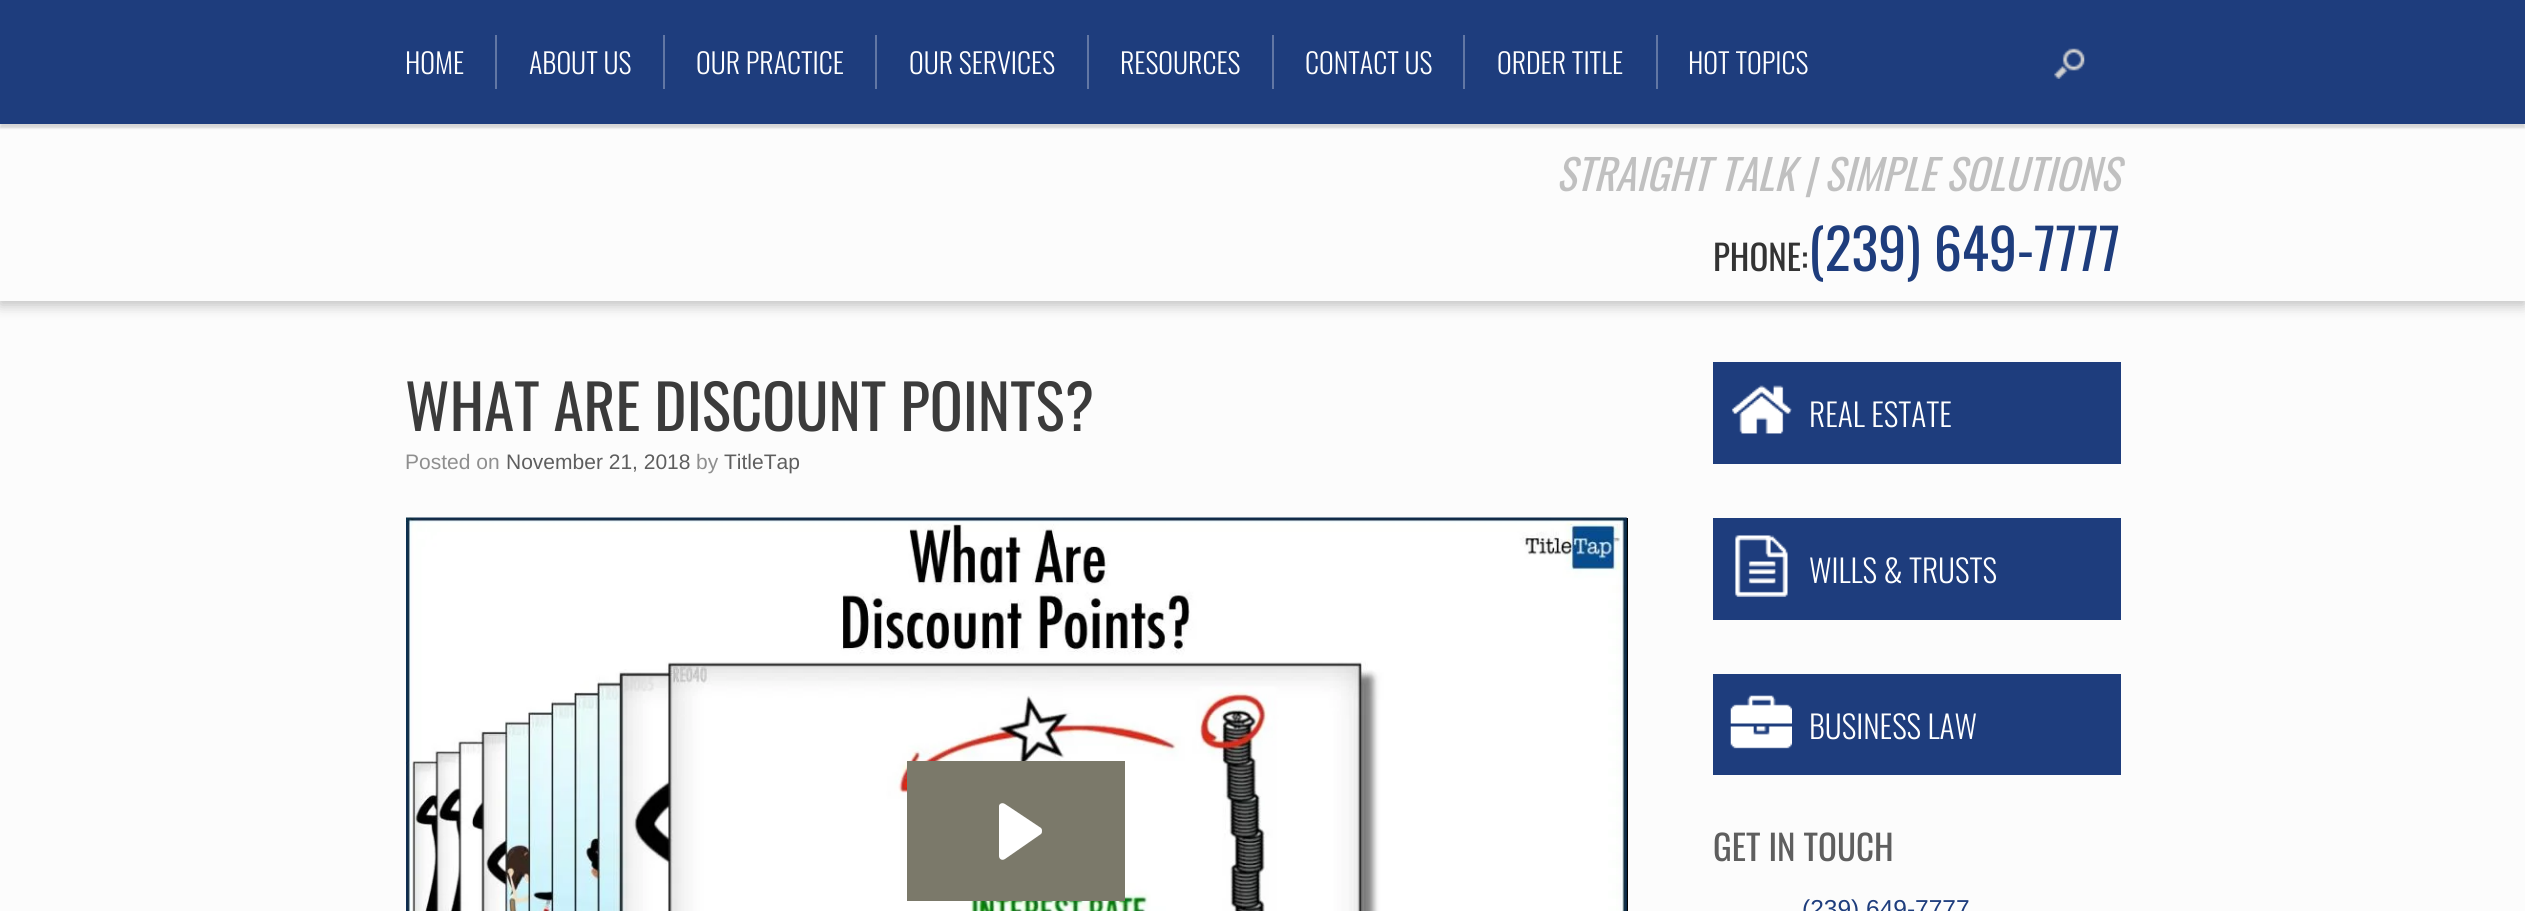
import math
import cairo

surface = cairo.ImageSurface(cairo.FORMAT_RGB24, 2525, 911)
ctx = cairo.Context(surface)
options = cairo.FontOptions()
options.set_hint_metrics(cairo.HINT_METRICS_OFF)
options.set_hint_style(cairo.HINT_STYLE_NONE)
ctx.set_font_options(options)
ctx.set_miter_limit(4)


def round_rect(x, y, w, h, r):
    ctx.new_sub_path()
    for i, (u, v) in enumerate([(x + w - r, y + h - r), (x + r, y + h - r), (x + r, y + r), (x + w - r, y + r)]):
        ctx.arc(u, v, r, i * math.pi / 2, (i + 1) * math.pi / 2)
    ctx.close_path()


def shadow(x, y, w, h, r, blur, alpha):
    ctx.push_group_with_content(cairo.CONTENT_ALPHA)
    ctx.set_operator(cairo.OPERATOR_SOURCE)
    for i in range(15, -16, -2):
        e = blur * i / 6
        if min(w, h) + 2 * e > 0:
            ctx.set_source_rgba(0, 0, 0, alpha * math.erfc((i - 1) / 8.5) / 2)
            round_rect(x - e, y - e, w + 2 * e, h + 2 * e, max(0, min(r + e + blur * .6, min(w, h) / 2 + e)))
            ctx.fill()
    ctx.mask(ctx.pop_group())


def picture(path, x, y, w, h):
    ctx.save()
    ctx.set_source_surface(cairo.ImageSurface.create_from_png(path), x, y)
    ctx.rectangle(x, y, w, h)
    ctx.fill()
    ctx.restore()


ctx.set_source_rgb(0.988, 0.988, 0.988)
ctx.paint()
ctx.set_source_rgb(0, 0, 0)
shadow(0, 4, 2525, 301, 0, 7, 0.25)
ctx.set_source_rgb(0.988, 0.988, 0.988)
ctx.rectangle(0, 124, 2525, 177)
ctx.fill()
ctx.set_source_rgb(0, 0, 0)
shadow(0, 4, 2525, 124, 0, 1, 0.15)
ctx.set_source_rgb(0.118, 0.239, 0.49)
ctx.rectangle(0, 0, 2525, 124)
ctx.fill()
ctx.select_font_face("Oswald Light")
ctx.set_font_size(28)
ctx.set_source_rgb(1, 1, 1)
ctx.move_to(405, 74)
ctx.show_text("HOME")
ctx.set_source_rgb(0.384, 0.467, 0.643)
ctx.rectangle(495, 35, 2, 54)
ctx.fill()
ctx.set_source_rgb(1, 1, 1)
ctx.move_to(529, 74)
ctx.show_text("ABOUT US")
ctx.set_source_rgb(0.384, 0.467, 0.643)
ctx.rectangle(663, 35, 2, 54)
ctx.fill()
ctx.set_source_rgb(1, 1, 1)
ctx.move_to(696, 74)
ctx.show_text("OUR PRACTICE")
ctx.set_source_rgb(0.384, 0.467, 0.643)
ctx.rectangle(875, 35, 2, 54)
ctx.fill()
ctx.set_source_rgb(1, 1, 1)
ctx.move_to(909, 74)
ctx.show_text("OUR SERVICES")
ctx.set_source_rgb(0.384, 0.467, 0.643)
ctx.rectangle(1087, 35, 2, 54)
ctx.fill()
ctx.set_source_rgb(1, 1, 1)
ctx.move_to(1120, 74)
ctx.show_text("RESOURCES")
ctx.set_source_rgb(0.384, 0.467, 0.643)
ctx.rectangle(1272, 35, 2, 54)
ctx.fill()
ctx.set_source_rgb(1, 1, 1)
ctx.move_to(1305, 74)
ctx.show_text("CONTACT US")
ctx.set_source_rgb(0.384, 0.467, 0.643)
ctx.rectangle(1463, 35, 2, 54)
ctx.fill()
ctx.set_source_rgb(1, 1, 1)
ctx.move_to(1497, 74)
ctx.show_text("ORDER TITLE")
ctx.set_source_rgb(0.384, 0.467, 0.643)
ctx.rectangle(1656, 35, 2, 54)
ctx.fill()
ctx.set_source_rgb(1, 1, 1)
ctx.move_to(1688, 74)
ctx.show_text("HOT TOPICS")
picture("img1.png", 2054, 48, 31, 31)
ctx.select_font_face("Oswald", cairo.FONT_SLANT_ITALIC)
ctx.set_font_size(42)
ctx.set_source_rgb(0.753, 0.753, 0.753)
ctx.move_to(1556, 191)
ctx.show_text("STRAIGHT TALK | SIMPLE SOLUTIONS")
ctx.select_font_face("Oswald")
ctx.set_font_size(35)
ctx.set_source_rgb(0.2, 0.2, 0.2)
ctx.move_to(1713, 271)
ctx.show_text("PHONE:")
ctx.set_font_size(56)
ctx.set_source_rgb(0.118, 0.239, 0.49)
ctx.move_to(1808, 271)
ctx.show_text("(239) 649-7777")
ctx.set_font_size(61.25)
ctx.set_source_rgb(0.231, 0.231, 0.231)
ctx.move_to(405, 431)
ctx.show_text("WHAT ARE DISCOUNT POINTS?")
ctx.select_font_face("Liberation Sans")
ctx.set_font_size(21)
ctx.set_source_rgb(0.561, 0.561, 0.561)
ctx.move_to(405, 469)
ctx.show_text("Posted on")
ctx.set_source_rgb(0.369, 0.369, 0.369)
ctx.move_to(506, 469)
ctx.show_text("November 21, 2018")
ctx.set_source_rgb(0.561, 0.561, 0.561)
ctx.move_to(696, 469)
ctx.show_text("by")
ctx.set_source_rgb(0.369, 0.369, 0.369)
ctx.move_to(724, 469)
ctx.show_text("TitleTap")
ctx.set_source_rgb(0, 0, 0)
ctx.rectangle(1626, 518, 2, 393)
ctx.fill()
picture("img2.png", 406, 517, 1221, 394)
ctx.set_source_rgb(0.482, 0.475, 0.416)
ctx.rectangle(907, 761, 218, 140)
ctx.fill()
ctx.set_source_rgb(1, 1, 1)
ctx.set_fill_rule(cairo.FILL_RULE_EVEN_ODD)
ctx.new_path()
ctx.move_to(1005, 804)
ctx.curve_to(1002, 802, 999, 804, 999, 806)
ctx.line_to(999, 856)
ctx.curve_to(999, 859, 1002, 861, 1005, 859)
ctx.line_to(1041, 834)
ctx.curve_to(1042, 833, 1042, 832, 1042, 831)
ctx.curve_to(1042, 830, 1042, 829, 1041, 828)
ctx.close_path()
ctx.fill()
ctx.set_source_rgb(0.118, 0.239, 0.49)
ctx.rectangle(1713, 362, 408, 102)
ctx.fill()
picture("img3.png", 1731, 385, 61, 49)
ctx.select_font_face("Oswald Light")
ctx.set_font_size(31.5)
ctx.set_source_rgb(1, 1, 1)
ctx.move_to(1809, 427)
ctx.show_text("REAL ESTATE")
ctx.set_source_rgb(0.118, 0.239, 0.49)
ctx.rectangle(1713, 518, 408, 102)
ctx.fill()
picture("img4.png", 1735, 535, 53, 62)
ctx.set_source_rgb(1, 1, 1)
ctx.move_to(1809, 583)
ctx.show_text("WILLS & TRUSTS")
ctx.set_source_rgb(0.118, 0.239, 0.49)
ctx.rectangle(1713, 674, 408, 101)
ctx.fill()
picture("img5.png", 1730, 695, 62, 54)
ctx.set_source_rgb(1, 1, 1)
ctx.move_to(1809, 739)
ctx.show_text("BUSINESS LAW")
ctx.select_font_face("Oswald")
ctx.set_font_size(35)
ctx.set_source_rgb(0.369, 0.369, 0.369)
ctx.move_to(1713, 861)
ctx.show_text("GET IN TOUCH")
ctx.select_font_face("Liberation Sans")
ctx.set_font_size(24.5)
ctx.set_source_rgb(0.118, 0.239, 0.49)
ctx.move_to(1802, 917)
ctx.show_text("(239) 649-7777")
surface.write_to_png("page.png")
